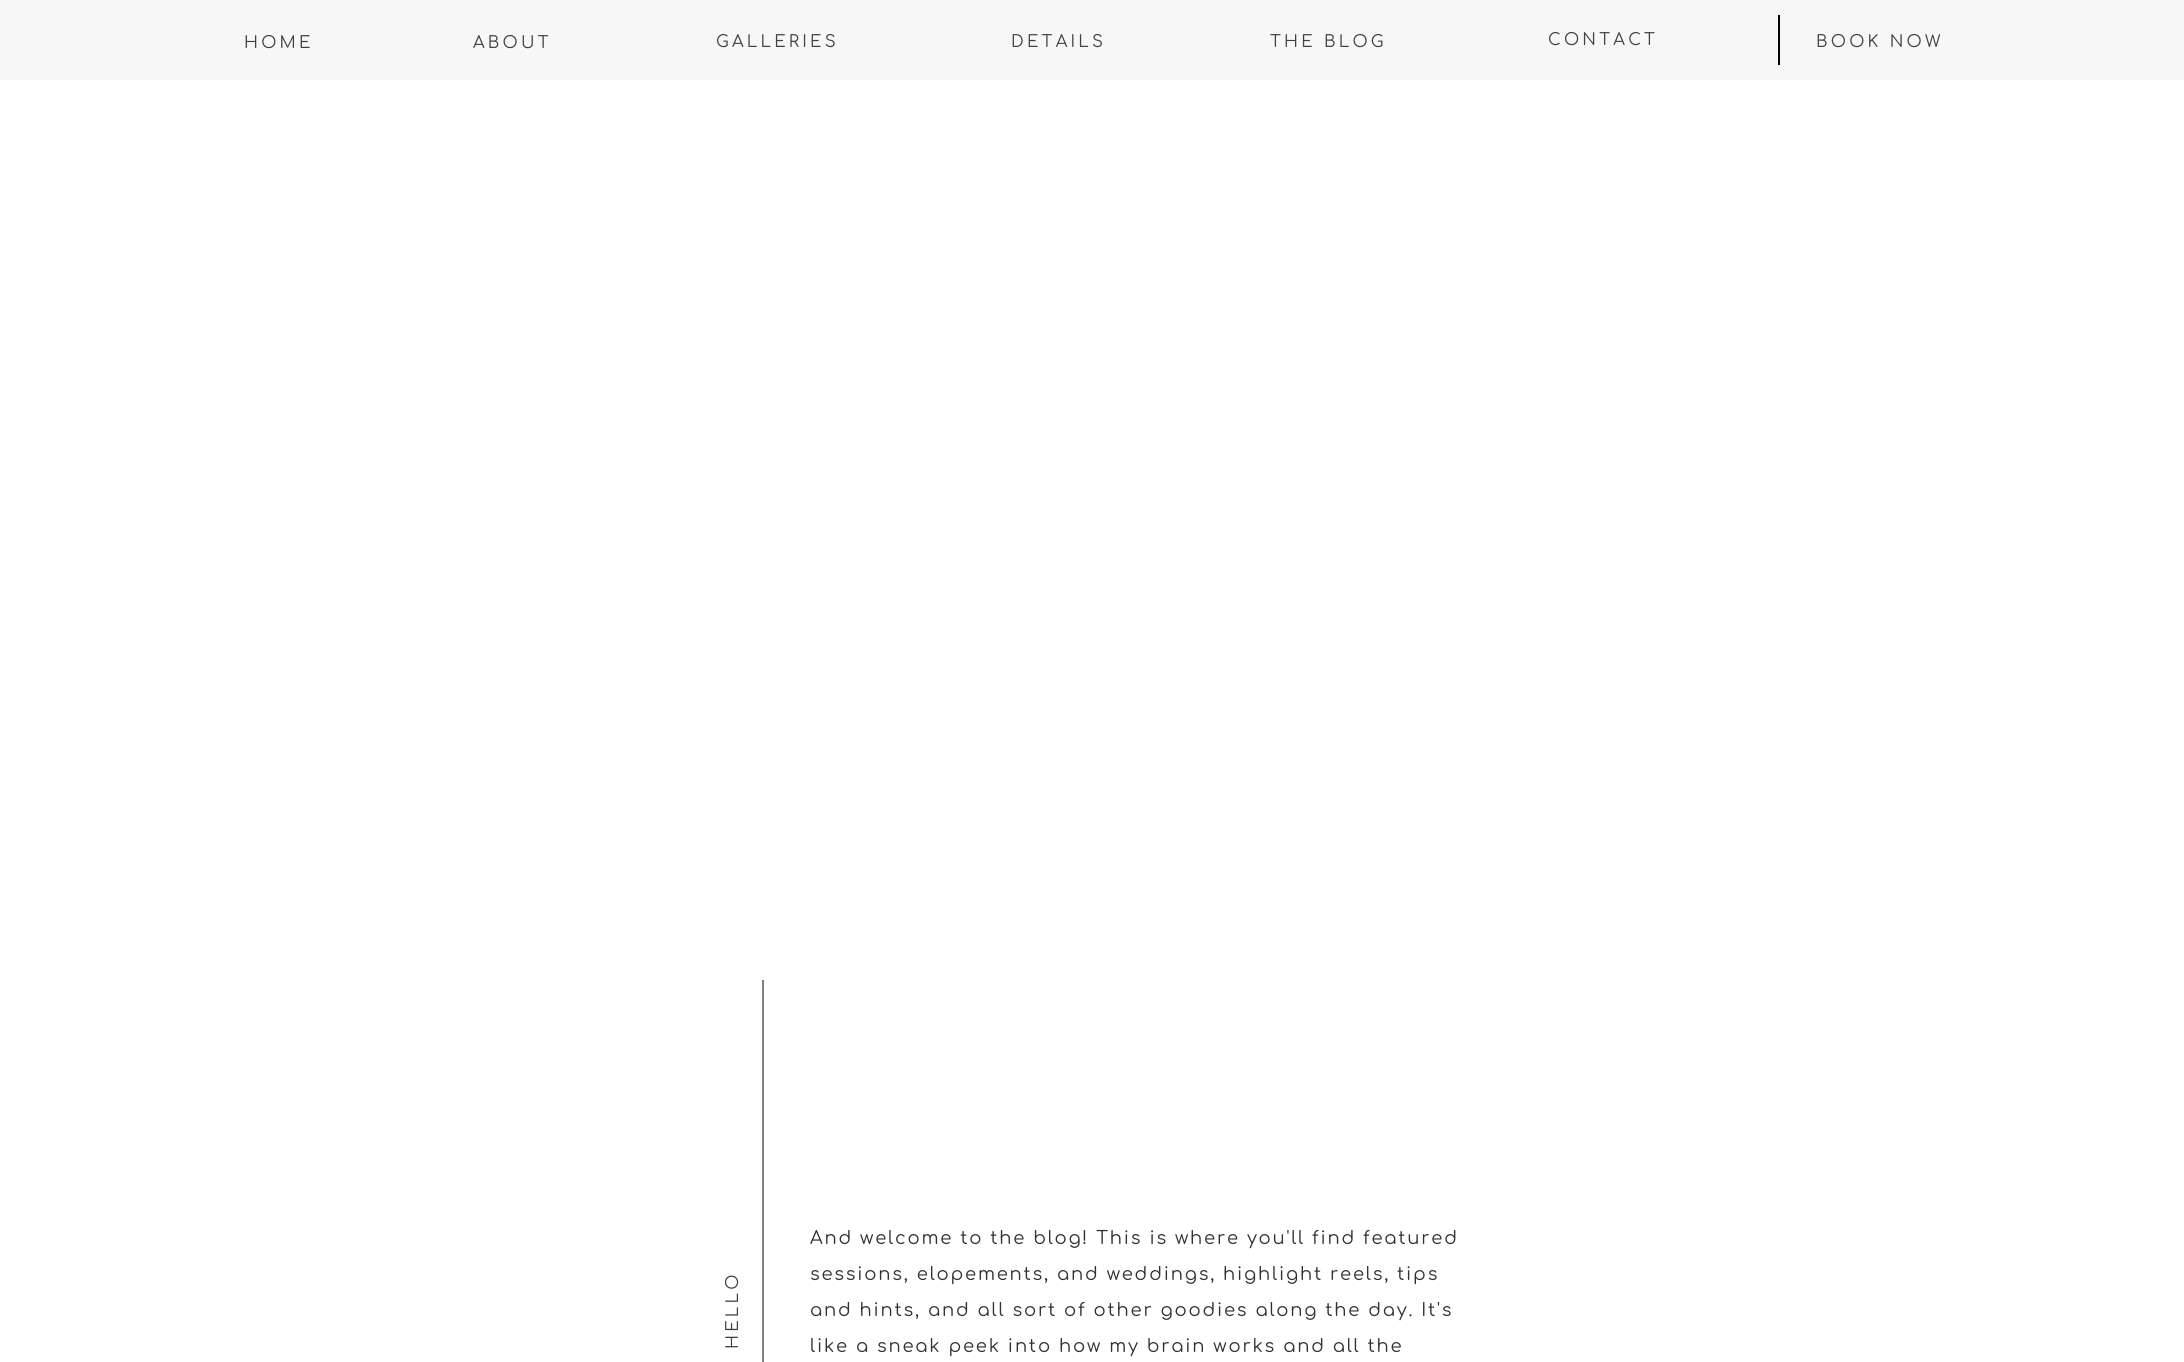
import math
import cairo

surface = cairo.ImageSurface(cairo.FORMAT_RGB24, 2184, 1362)
ctx = cairo.Context(surface)
options = cairo.FontOptions()
options.set_hint_metrics(cairo.HINT_METRICS_OFF)
options.set_hint_style(cairo.HINT_STYLE_NONE)
ctx.set_font_options(options)
ctx.set_miter_limit(4)


def spaced_text(x, y, s, letter, word):
    ctx.move_to(x, y)
    for ch in s:
        ctx.show_text(ch)
        ctx.rel_move_to(letter + word * (ch == ' '), 0)


ctx.set_source_rgb(1, 1, 1)
ctx.paint()
ctx.set_source_rgb(0.965, 0.965, 0.965)
ctx.rectangle(0, 0, 2184, 80)
ctx.fill()
ctx.select_font_face("Comfortaa")
ctx.set_font_size(16.5)
ctx.set_source_rgb(0.251, 0.251, 0.251)
spaced_text(244, 48, "HOME", 3.25, 0)
spaced_text(473, 48, "ABOUT", 3.25, 0)
spaced_text(716, 47, "GALLERIES", 3.25, 0)
spaced_text(1011, 47, "DETAILS", 3.25, 0)
spaced_text(1270, 47, "THE BLOG", 3.25, 0)
spaced_text(1548, 45, "CONTACT", 3.25, 0)
ctx.set_source_rgb(0, 0, 0)
ctx.rectangle(1778, 15, 2, 50)
ctx.fill()
ctx.set_source_rgb(0.251, 0.251, 0.251)
spaced_text(1816, 47, "BOOK NOW", 3.25, 0)
ctx.save()
ctx.translate(738, 1349)
ctx.rotate(-90 * math.pi / 180)
spaced_text(0, 0, "HELLO", 3.25, 0)
ctx.restore()
ctx.set_source_rgb(0.506, 0.506, 0.506)
ctx.rectangle(762, 980, 2, 382)
ctx.fill()
ctx.set_font_size(18)
ctx.set_source_rgb(0.192, 0.192, 0.192)
spaced_text(810, 1244, "And welcome to the blog! This is where you'll find featured", 1.8, 0)
spaced_text(810, 1280, "sessions, elopements, and weddings, highlight reels, tips", 1.8, 0)
spaced_text(810, 1316, "and hints, and all sort of other goodies along the day. It's", 1.8, 0)
spaced_text(810, 1352, "like a sneak peek into how my brain works and all the", 1.8, 0)
surface.write_to_png("page.png")
